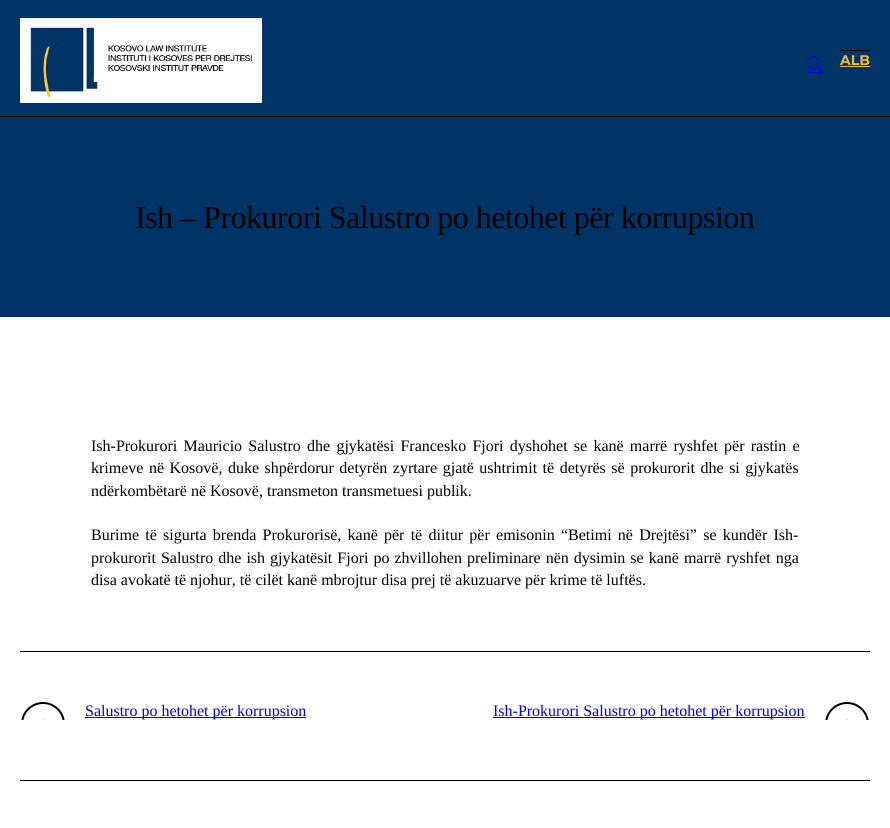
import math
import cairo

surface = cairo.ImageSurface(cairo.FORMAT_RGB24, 890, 828)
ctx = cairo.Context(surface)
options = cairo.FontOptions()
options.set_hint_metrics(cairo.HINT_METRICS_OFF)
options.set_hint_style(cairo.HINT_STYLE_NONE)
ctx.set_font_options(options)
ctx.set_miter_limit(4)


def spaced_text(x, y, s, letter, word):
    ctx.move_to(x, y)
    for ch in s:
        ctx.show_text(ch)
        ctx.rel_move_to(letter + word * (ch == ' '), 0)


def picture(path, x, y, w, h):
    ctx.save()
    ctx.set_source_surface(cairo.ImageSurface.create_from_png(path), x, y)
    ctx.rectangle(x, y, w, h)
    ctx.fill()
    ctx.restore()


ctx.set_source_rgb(1, 1, 1)
ctx.paint()
ctx.set_source_rgb(0, 0.204, 0.4)
ctx.rectangle(0, 0, 890, 116)
ctx.fill()
ctx.set_source_rgb(0, 0, 0)
ctx.rectangle(0, 116, 890, 1)
ctx.fill()
picture("img1.png", 20, 18, 242, 85)
ctx.set_source_rgb(0, 0, 0.933)
ctx.rectangle(807, 72, 16, 1)
ctx.fill()
picture("img2.png", 807, 56, 16, 16)
ctx.set_source_rgb(0, 0, 0)
ctx.rectangle(840, 50, 30, 1)
ctx.fill()
ctx.select_font_face("Montserrat", cairo.FONT_SLANT_NORMAL, cairo.FONT_WEIGHT_BOLD)
ctx.set_font_size(14)
ctx.set_source_rgb(0.902, 0.745, 0.216)
ctx.move_to(840, 65)
ctx.show_text("ALB")
ctx.rectangle(840, 66, 30, 1)
ctx.fill()
ctx.set_source_rgb(0, 0.204, 0.4)
ctx.rectangle(0, 117, 890, 200)
ctx.fill()
ctx.select_font_face("Liberation Serif")
ctx.set_font_size(32)
ctx.set_source_rgb(0, 0, 0)
spaced_text(135, 228, "Ish – Prokurori Salustro po hetohet për korrupsion", -0.5, 0)
ctx.set_font_size(16)
spaced_text(91, 451, "Ish-Prokurori Mauricio Salustro dhe gjykatësi Francesko Fjori dyshohet se kanë marrë ryshfet për rastin e", 0, 2.25)
spaced_text(91, 473, "krimeve në Kosovë, duke shpërdorur detyrën zyrtare gjatë ushtrimit të detyrës së prokurorit dhe si gjykatës", 0, 1.5)
ctx.move_to(91, 496)
ctx.show_text("ndërkombëtarë në Kosovë, transmeton transmetuesi publik.")
spaced_text(91, 540, "Burime të sigurta brenda Prokurorisë, kanë për të diitur për emisonin “Betimi në Drejtësi” se kundër Ish-", 0, 2.25)
spaced_text(91, 563, "prokurorit Salustro dhe ish gjykatësit Fjori po zhvillohen preliminare nën dysimin se kanë marrë ryshfet nga", 0, 1)
ctx.move_to(91, 585)
ctx.show_text("disa avokatë të njohur, të cilët kanë mbrojtur disa prej të akuzuarve për krime të luftës.")
ctx.rectangle(20, 651, 850, 1)
ctx.fill()
ctx.save()
ctx.rectangle(20, 652, 850, 68)
ctx.clip()
ctx.arc(43, 724, 21, 0, 2 * math.pi)
ctx.stroke()
ctx.restore()
ctx.set_source_rgb(0.878, 0.878, 0.878)
ctx.rectangle(42, 719, 2, 1)
ctx.fill()
ctx.set_source_rgb(0, 0, 0.933)
ctx.rectangle(85, 717, 221, 1)
ctx.fill()
ctx.move_to(85, 716)
ctx.show_text("Salustro po hetohet për korrupsion")
ctx.rectangle(493, 717, 312, 1)
ctx.fill()
ctx.move_to(493, 716)
ctx.show_text("Ish-Prokurori Salustro po hetohet për korrupsion")
ctx.save()
ctx.rectangle(20, 652, 850, 68)
ctx.clip()
ctx.arc(847, 724, 21, 0, 2 * math.pi)
ctx.set_source_rgb(0, 0, 0)
ctx.stroke()
ctx.restore()
ctx.set_source_rgb(0.878, 0.878, 0.878)
ctx.rectangle(846, 719, 2, 1)
ctx.fill()
ctx.set_source_rgb(0, 0, 0)
ctx.rectangle(20, 780, 850, 1)
ctx.fill()
surface.write_to_png("page.png")
